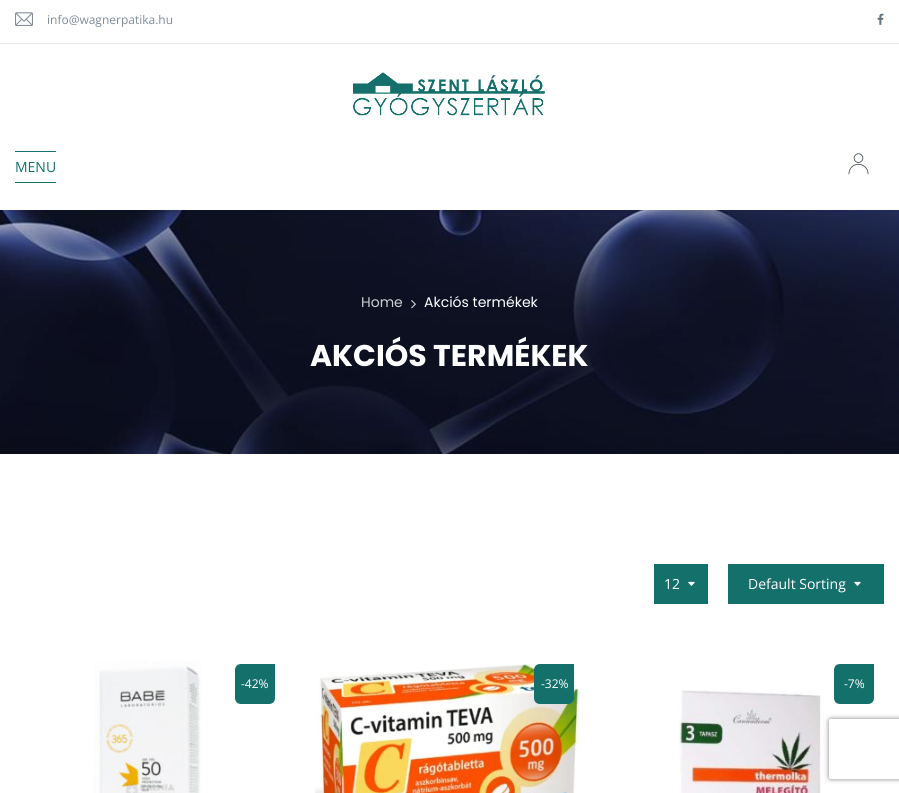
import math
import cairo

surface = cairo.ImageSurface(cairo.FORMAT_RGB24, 899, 793)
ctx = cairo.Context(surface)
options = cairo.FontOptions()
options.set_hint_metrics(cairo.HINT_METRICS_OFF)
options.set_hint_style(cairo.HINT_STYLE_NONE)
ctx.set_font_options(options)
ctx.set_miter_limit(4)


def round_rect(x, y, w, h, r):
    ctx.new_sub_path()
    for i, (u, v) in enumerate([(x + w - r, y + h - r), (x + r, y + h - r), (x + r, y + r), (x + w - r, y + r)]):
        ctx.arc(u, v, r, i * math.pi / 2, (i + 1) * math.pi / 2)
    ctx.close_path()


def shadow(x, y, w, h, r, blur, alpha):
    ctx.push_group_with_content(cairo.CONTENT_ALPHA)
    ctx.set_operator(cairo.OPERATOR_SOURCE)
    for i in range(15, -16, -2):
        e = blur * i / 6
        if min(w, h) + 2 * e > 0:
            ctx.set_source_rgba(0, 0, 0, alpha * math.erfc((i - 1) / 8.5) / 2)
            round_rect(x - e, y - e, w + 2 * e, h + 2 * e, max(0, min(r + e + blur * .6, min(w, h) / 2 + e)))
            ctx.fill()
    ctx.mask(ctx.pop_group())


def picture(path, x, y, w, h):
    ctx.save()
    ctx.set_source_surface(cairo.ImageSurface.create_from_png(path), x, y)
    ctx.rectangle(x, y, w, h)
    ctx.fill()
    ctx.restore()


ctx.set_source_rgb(1, 1, 1)
ctx.paint()
ctx.set_source_rgb(0.902, 0.914, 0.929)
ctx.rectangle(0, 43, 899, 1)
ctx.fill()
picture("img1.png", 15, 12, 18, 14)
ctx.select_font_face("Open Sans")
ctx.set_font_size(12)
ctx.set_source_rgb(0.502, 0.549, 0.596)
ctx.move_to(47, 24)
ctx.show_text("info@wagnerpatika.hu")
picture("img2.png", 877, 13, 7, 12)
picture("img3.png", 353, 72, 192, 44)
ctx.set_source_rgb(0.082, 0.439, 0.42)
ctx.rectangle(15, 151, 41, 1)
ctx.fill()
ctx.rectangle(15, 182, 41, 1)
ctx.fill()
ctx.set_font_size(14)
ctx.move_to(15, 172)
ctx.show_text("MENU")
picture("img4.png", 848, 153, 21, 22)
picture("img5.png", 0, 210, 899, 244)
ctx.select_font_face("Poppins")
ctx.set_source_rgb(0.812, 0.812, 0.827)
ctx.move_to(361, 307)
ctx.show_text("Home")
picture("img6.png", 411, 300, 5, 9)
ctx.set_source_rgb(1, 1, 1)
ctx.move_to(424, 307)
ctx.show_text("Akciós termékek")
ctx.select_font_face("Poppins", cairo.FONT_SLANT_NORMAL, cairo.FONT_WEIGHT_BOLD)
ctx.set_font_size(30)
ctx.move_to(310, 366)
ctx.show_text("AKCIÓS TERMÉKEK")
ctx.set_source_rgb(0.082, 0.439, 0.42)
ctx.rectangle(654, 564, 54, 40)
ctx.fill()
ctx.select_font_face("Open Sans")
ctx.set_font_size(14)
ctx.set_source_rgb(1, 1, 1)
ctx.move_to(664, 589)
ctx.show_text("12")
picture("img7.png", 688, 581, 7, 5)
ctx.set_source_rgb(0.082, 0.439, 0.42)
ctx.rectangle(728, 564, 156, 40)
ctx.fill()
ctx.set_source_rgb(1, 1, 1)
ctx.move_to(748, 589)
ctx.show_text("Default Sorting")
picture("img7.png", 854, 581, 7, 5)
picture("img8.png", 94, 661, 108, 132)
ctx.set_source_rgb(0.082, 0.439, 0.42)
ctx.new_path()
ctx.move_to(241, 664)
ctx.line_to(275, 664)
ctx.line_to(275, 698)
ctx.curve_to(275, 701.5, 272.5, 704, 269, 704)
ctx.line_to(241, 704)
ctx.curve_to(237.5, 704, 235, 701.5, 235, 698)
ctx.line_to(235, 670)
ctx.curve_to(235, 666.5, 237.5, 664, 241, 664)
ctx.close_path()
ctx.fill()
ctx.set_font_size(12)
ctx.set_source_rgb(1, 1, 1)
ctx.move_to(241, 688)
ctx.show_text("-42%")
picture("img9.png", 315, 663, 266, 130)
ctx.set_source_rgb(0.082, 0.439, 0.42)
ctx.new_path()
ctx.move_to(540, 664)
ctx.line_to(574, 664)
ctx.line_to(574, 698)
ctx.curve_to(574, 701.5, 571.5, 704, 568, 704)
ctx.line_to(540, 704)
ctx.curve_to(536.5, 704, 534, 701.5, 534, 698)
ctx.line_to(534, 670)
ctx.curve_to(534, 666.5, 536.5, 664, 540, 664)
ctx.close_path()
ctx.fill()
ctx.set_source_rgb(1, 1, 1)
ctx.move_to(541, 688)
ctx.show_text("-32%")
ctx.set_source_rgb(0.082, 0.439, 0.42)
ctx.new_path()
ctx.move_to(840, 664)
ctx.line_to(874, 664)
ctx.line_to(874, 698)
ctx.curve_to(874, 701.5, 871.5, 704, 868, 704)
ctx.line_to(840, 704)
ctx.curve_to(836.5, 704, 834, 701.5, 834, 698)
ctx.line_to(834, 670)
ctx.curve_to(834, 666.5, 836.5, 664, 840, 664)
ctx.close_path()
ctx.fill()
ctx.set_source_rgb(1, 1, 1)
ctx.move_to(844, 688)
ctx.show_text("-7%")
picture("img10.png", 678, 690, 143, 103)
ctx.save()
ctx.set_fill_rule(cairo.FILL_RULE_EVEN_ODD)
ctx.new_path()
ctx.move_to(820, 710)
ctx.line_to(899, 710)
ctx.line_to(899, 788)
ctx.line_to(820, 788)
ctx.close_path()
ctx.move_to(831, 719)
ctx.line_to(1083, 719)
ctx.curve_to(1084, 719, 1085, 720, 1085, 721)
ctx.line_to(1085, 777)
ctx.curve_to(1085, 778, 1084, 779, 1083, 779)
ctx.line_to(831, 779)
ctx.curve_to(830, 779, 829, 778, 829, 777)
ctx.line_to(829, 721)
ctx.curve_to(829, 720, 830, 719, 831, 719)
ctx.close_path()
ctx.clip()
ctx.set_source_rgb(0.502, 0.502, 0.502)
shadow(829, 719, 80, 60, 2, 2.5, 1)
ctx.restore()
surface.write_to_png("page.png")
